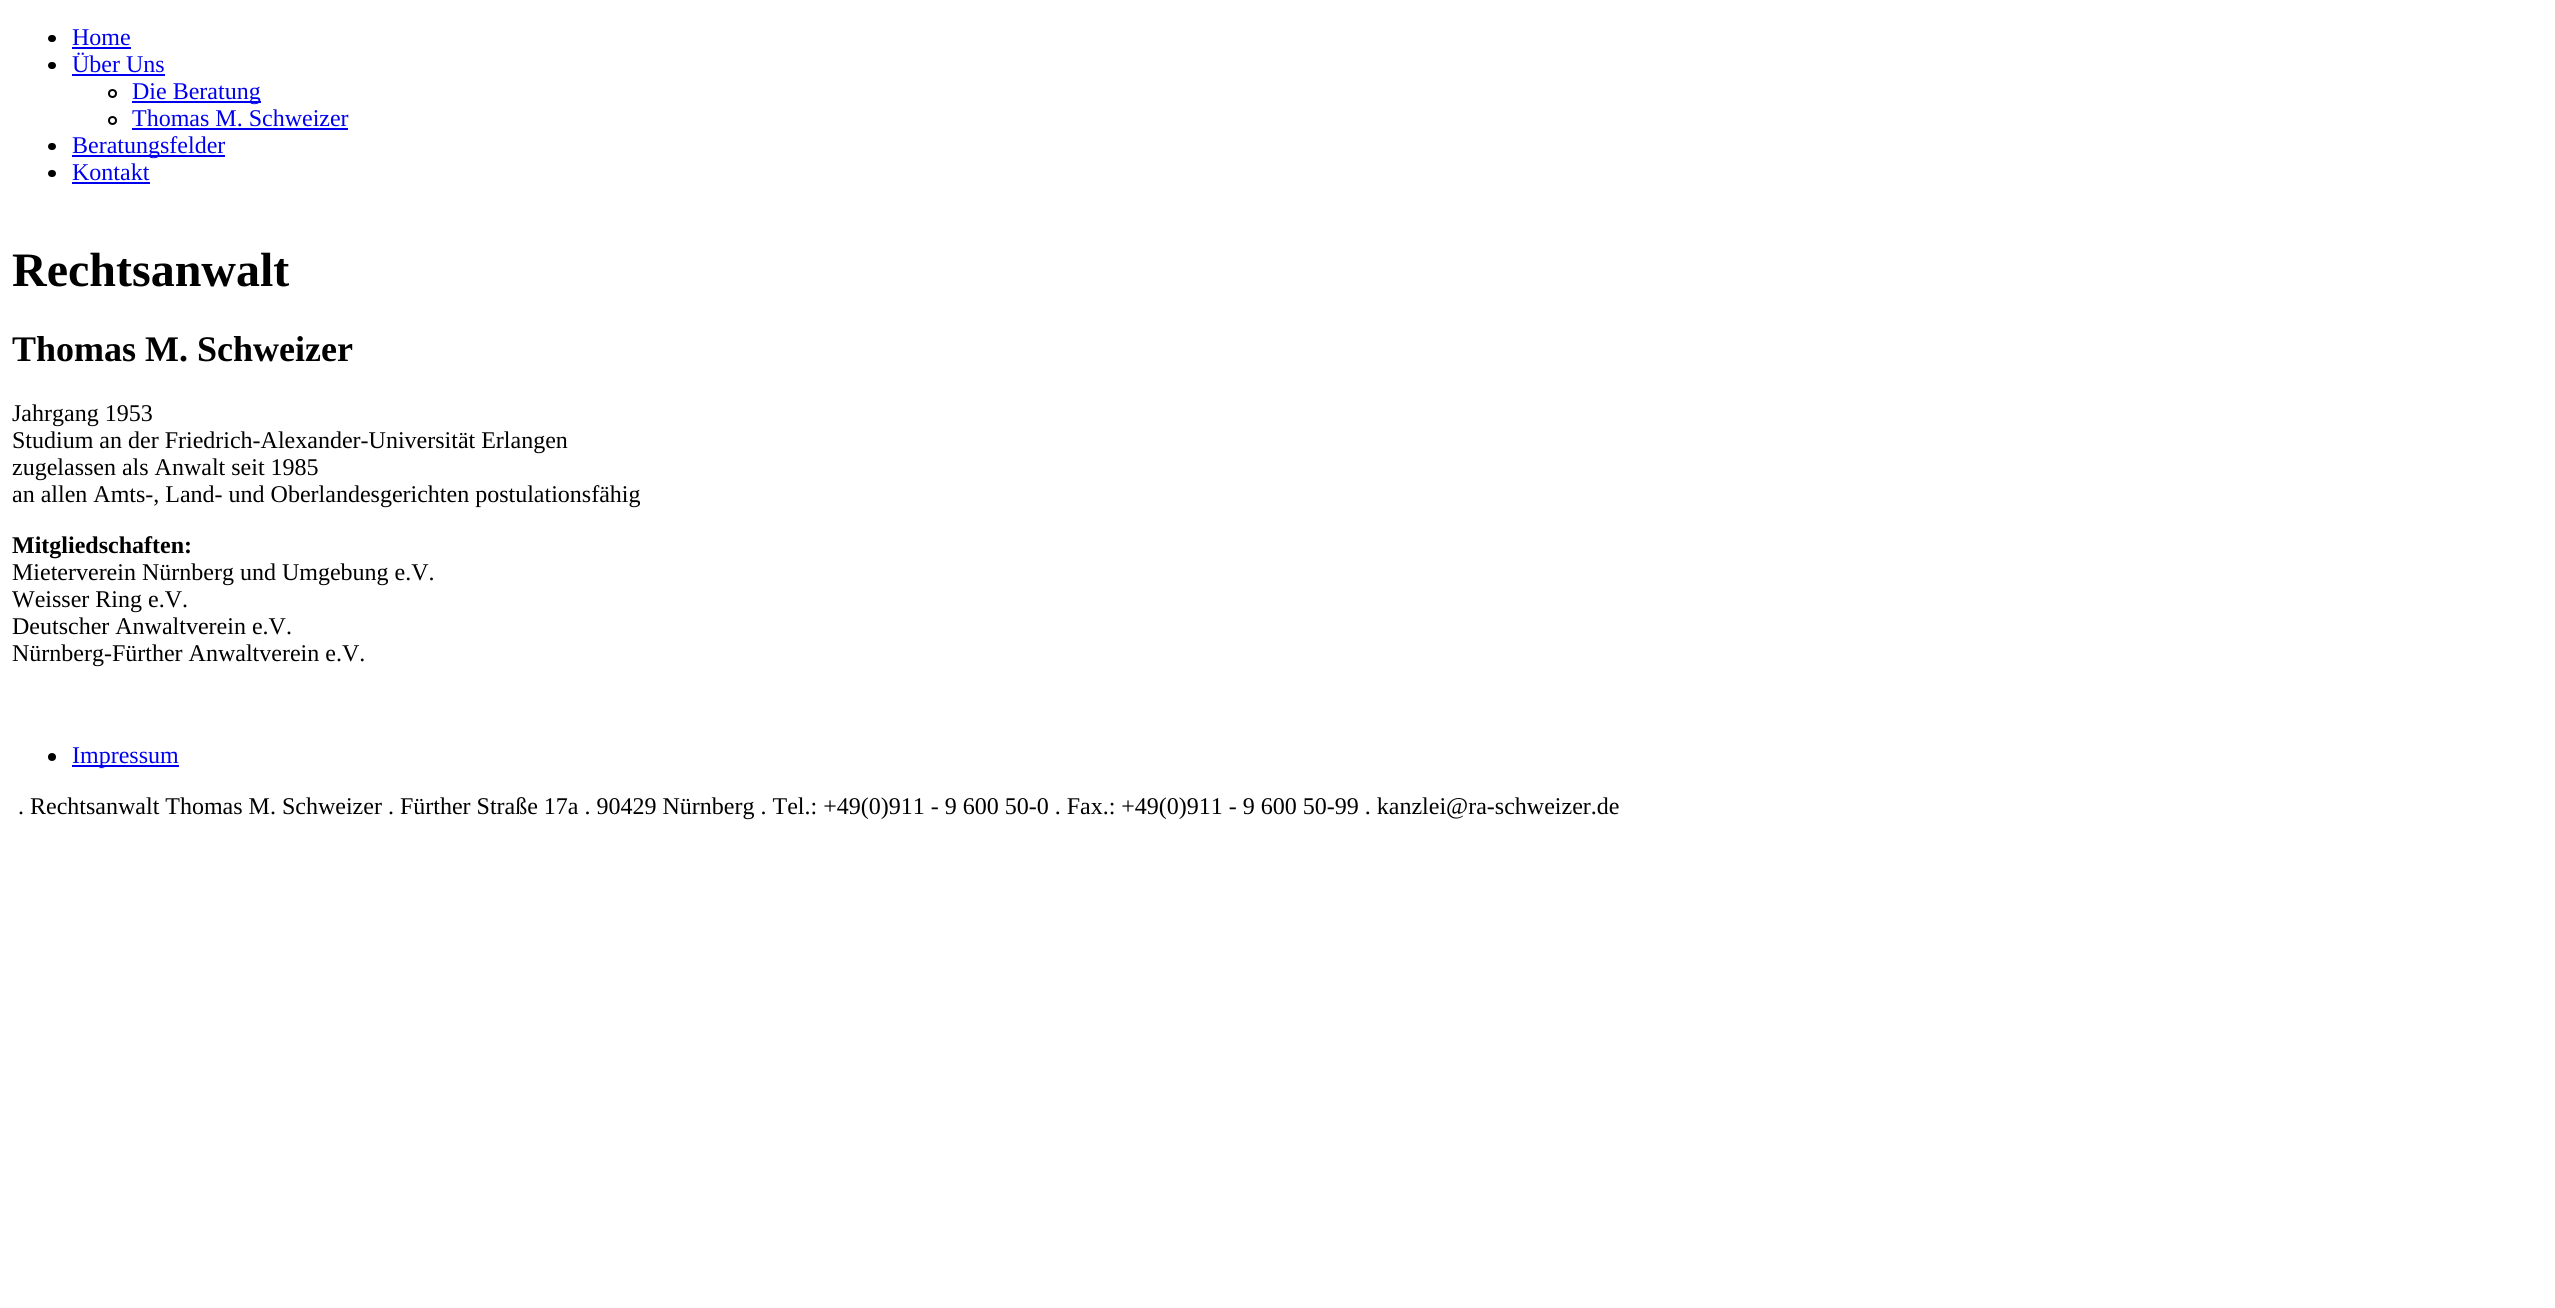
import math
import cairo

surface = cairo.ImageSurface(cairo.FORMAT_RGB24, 2555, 1308)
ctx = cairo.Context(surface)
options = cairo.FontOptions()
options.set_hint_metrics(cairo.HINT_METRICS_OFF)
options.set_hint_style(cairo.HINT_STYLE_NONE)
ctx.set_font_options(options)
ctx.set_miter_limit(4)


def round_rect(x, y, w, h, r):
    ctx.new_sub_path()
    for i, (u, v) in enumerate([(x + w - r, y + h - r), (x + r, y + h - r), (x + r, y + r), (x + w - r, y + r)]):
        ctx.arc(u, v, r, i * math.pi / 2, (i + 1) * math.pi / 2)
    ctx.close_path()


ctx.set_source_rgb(1, 1, 1)
ctx.paint()
ctx.set_source_rgb(0, 0, 0)
round_rect(48, 35, 8, 7, 3.5)
ctx.fill()
ctx.select_font_face("Liberation Serif")
ctx.set_font_size(24)
ctx.set_source_rgb(0, 0, 0.933)
ctx.move_to(72, 45)
ctx.show_text("Home")
ctx.rectangle(72, 47, 59, 2)
ctx.fill()
ctx.set_source_rgb(0, 0, 0)
round_rect(48, 62, 8, 7, 3.5)
ctx.fill()
ctx.set_source_rgb(0, 0, 0.933)
ctx.move_to(72, 72)
ctx.show_text("Über Uns")
ctx.rectangle(72, 74, 93, 2)
ctx.fill()
ctx.arc(112.5, 93.5, 3.5, 0, 2 * math.pi)
ctx.set_source_rgb(0, 0, 0)
ctx.stroke()
ctx.set_source_rgb(0, 0, 0.933)
ctx.rectangle(132, 101, 129, 2)
ctx.fill()
ctx.move_to(132, 99)
ctx.show_text("Die Beratung")
ctx.new_path()
ctx.arc(112.5, 120.5, 3.5, 0, 2 * math.pi)
ctx.set_source_rgb(0, 0, 0)
ctx.stroke()
ctx.set_source_rgb(0, 0, 0.933)
ctx.move_to(132, 126)
ctx.show_text("Thomas M. Schweizer")
ctx.rectangle(132, 128, 216, 2)
ctx.fill()
ctx.set_source_rgb(0, 0, 0)
round_rect(48, 143, 8, 7, 3.5)
ctx.fill()
ctx.set_source_rgb(0, 0, 0.933)
ctx.rectangle(72, 155, 153, 2)
ctx.fill()
ctx.move_to(72, 153)
ctx.show_text("Beratungsfelder")
ctx.set_source_rgb(0, 0, 0)
round_rect(48, 170, 8, 7, 3.5)
ctx.fill()
ctx.set_source_rgb(0, 0, 0.933)
ctx.move_to(72, 180)
ctx.show_text("Kontakt")
ctx.rectangle(72, 182, 78, 2)
ctx.fill()
ctx.select_font_face("Liberation Serif", cairo.FONT_SLANT_NORMAL, cairo.FONT_WEIGHT_BOLD)
ctx.set_font_size(48)
ctx.set_source_rgb(0, 0, 0)
ctx.move_to(12, 286)
ctx.show_text("Rechtsanwalt")
ctx.set_font_size(36)
ctx.move_to(12, 361)
ctx.show_text("Thomas M. Schweizer")
ctx.select_font_face("Liberation Serif")
ctx.set_font_size(24)
ctx.move_to(12, 421)
ctx.show_text("Jahrgang 1953")
ctx.move_to(12, 448)
ctx.show_text("Studium an der Friedrich-Alexander-Universität Erlangen")
ctx.move_to(12, 475)
ctx.show_text("zugelassen als Anwalt seit 1985")
ctx.move_to(12, 502)
ctx.show_text("an allen Amts-, Land- und Oberlandesgerichten postulationsfähig")
ctx.select_font_face("Liberation Serif", cairo.FONT_SLANT_NORMAL, cairo.FONT_WEIGHT_BOLD)
ctx.move_to(12, 553)
ctx.show_text("Mitgliedschaften:")
ctx.select_font_face("Liberation Serif")
ctx.move_to(12, 580)
ctx.show_text("Mieterverein Nürnberg und Umgebung e.V.")
ctx.move_to(12, 607)
ctx.show_text("Weisser Ring e.V.")
ctx.move_to(12, 634)
ctx.show_text("Deutscher Anwaltverein e.V.")
ctx.move_to(12, 661)
ctx.show_text("Nürnberg-Fürther Anwaltverein e.V.")
ctx.new_path()
ctx.arc(52, 757, 4, 0, 2 * math.pi)
ctx.fill()
ctx.set_source_rgb(0, 0, 0.933)
ctx.rectangle(72, 765, 107, 2)
ctx.fill()
ctx.move_to(72, 763)
ctx.show_text("Impressum")
ctx.set_source_rgb(0, 0, 0)
ctx.move_to(18, 814)
ctx.show_text(". Rechtsanwalt Thomas M. Schweizer . Fürther Straße 17a . 90429 Nürnberg . Tel.: +49(0)911 - 9 600 50-0 . Fax.: +49(0)911 - 9 600 50-99 . kanzlei@ra-schweizer.de")
surface.write_to_png("page.png")
